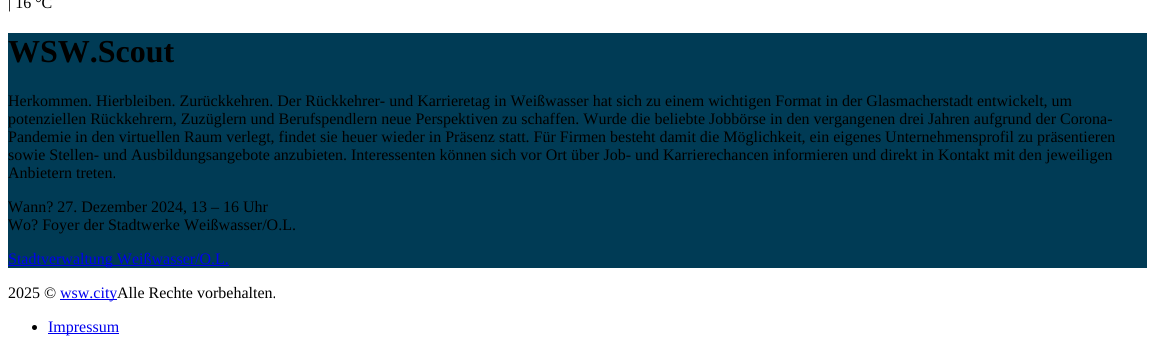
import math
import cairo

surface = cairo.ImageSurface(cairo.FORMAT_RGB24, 1155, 338)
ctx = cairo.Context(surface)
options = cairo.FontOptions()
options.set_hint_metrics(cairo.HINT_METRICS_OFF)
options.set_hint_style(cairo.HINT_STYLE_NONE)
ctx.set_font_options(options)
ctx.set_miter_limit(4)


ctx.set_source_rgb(1, 1, 1)
ctx.paint()
ctx.select_font_face("Liberation Serif")
ctx.set_font_size(16)
ctx.set_source_rgb(0, 0, 0)
ctx.move_to(8, 8)
ctx.show_text("| 16 °C")
ctx.set_source_rgb(0, 0.231, 0.333)
ctx.rectangle(8, 33, 1139, 235)
ctx.fill()
ctx.select_font_face("Liberation Serif", cairo.FONT_SLANT_NORMAL, cairo.FONT_WEIGHT_BOLD)
ctx.set_font_size(32)
ctx.set_source_rgb(0, 0, 0)
ctx.move_to(8, 62)
ctx.show_text("WSW.Scout")
ctx.select_font_face("Liberation Serif")
ctx.set_font_size(16)
ctx.move_to(8, 106)
ctx.show_text("Herkommen. Hierbleiben. Zurückkehren. Der Rückkehrer- und Karrieretag in Weißwasser hat sich zu einem wichtigen Format in der Glasmacherstadt entwickelt, um")
ctx.move_to(8, 124)
ctx.show_text("potenziellen Rückkehrern, Zuzüglern und Berufspendlern neue Perspektiven zu schaffen. Wurde die beliebte Jobbörse in den vergangenen drei Jahren aufgrund der Corona-")
ctx.move_to(8, 142)
ctx.show_text("Pandemie in den virtuellen Raum verlegt, findet sie heuer wieder in Präsenz statt. Für Firmen besteht damit die Möglichkeit, ein eigenes Unternehmensprofil zu präsentieren")
ctx.move_to(8, 160)
ctx.show_text("sowie Stellen- und Ausbildungsangebote anzubieten. Interessenten können sich vor Ort über Job- und Karrierechancen informieren und direkt in Kontakt mit den jeweiligen")
ctx.move_to(8, 178)
ctx.show_text("Anbietern treten.")
ctx.move_to(8, 212)
ctx.show_text("Wann? 27. Dezember 2024, 13 – 16 Uhr")
ctx.move_to(8, 230)
ctx.show_text("Wo? Foyer der Stadtwerke Weißwasser/O.L.")
ctx.set_source_rgb(0, 0, 0.933)
ctx.rectangle(8, 265, 221, 1)
ctx.fill()
ctx.move_to(8, 264)
ctx.show_text("Stadtverwaltung Weißwasser/O.L.")
ctx.set_source_rgb(0, 0, 0)
ctx.move_to(8, 298)
ctx.show_text("2025 ©")
ctx.set_source_rgb(0, 0, 0.933)
ctx.rectangle(60, 299, 57, 1)
ctx.fill()
ctx.move_to(60, 298)
ctx.show_text("wsw.city")
ctx.set_source_rgb(0, 0, 0)
ctx.move_to(117, 298)
ctx.show_text("Alle Rechte vorbehalten.")
ctx.new_path()
ctx.arc(34.5, 327.5, 2.5, 0, 2 * math.pi)
ctx.fill()
ctx.set_source_rgb(0, 0, 0.933)
ctx.rectangle(48, 333, 71, 1)
ctx.fill()
ctx.move_to(48, 332)
ctx.show_text("Impressum")
surface.write_to_png("page.png")
